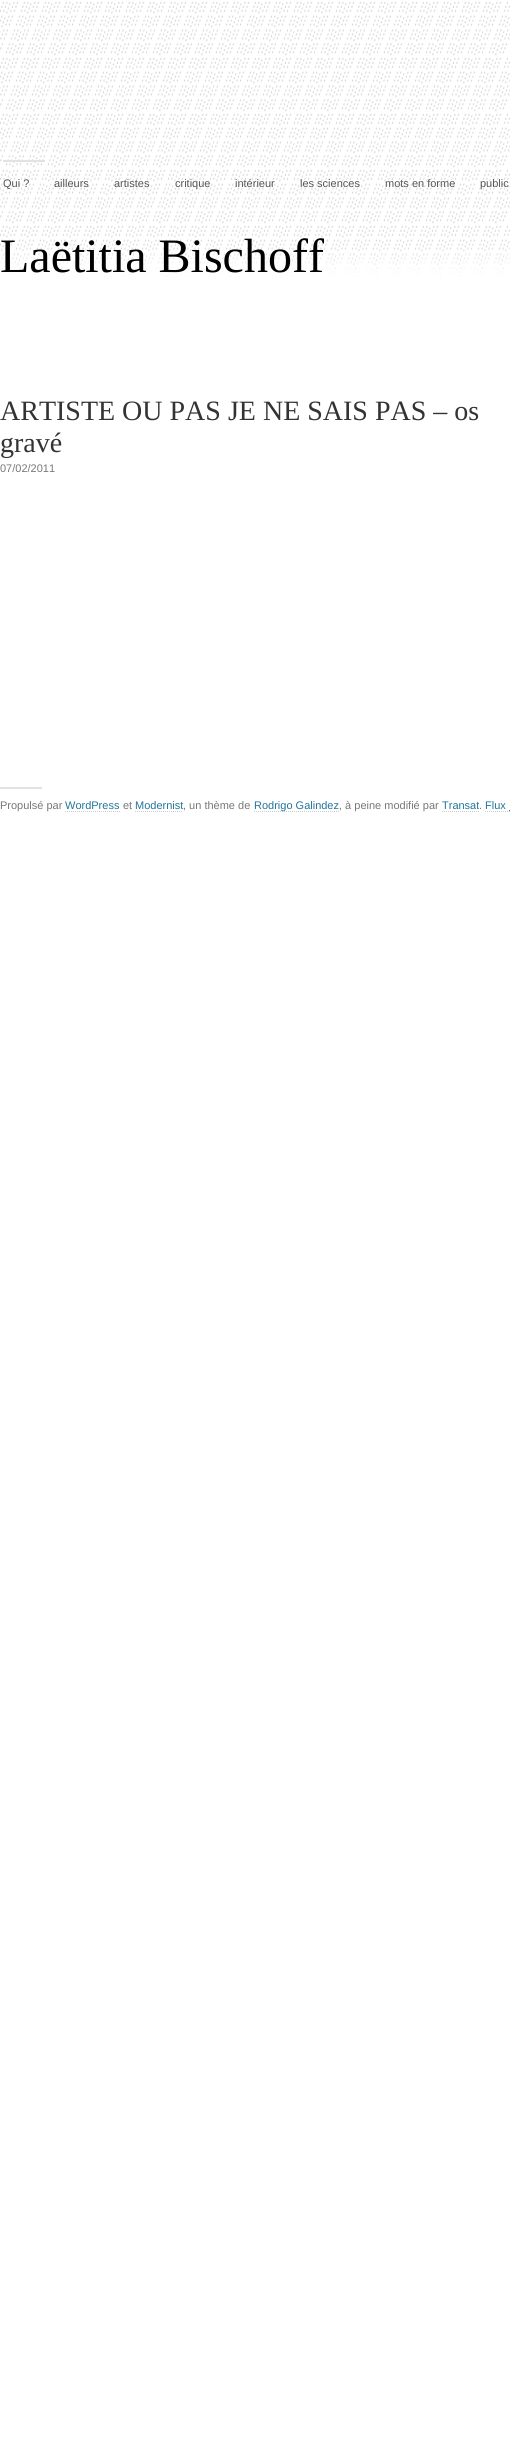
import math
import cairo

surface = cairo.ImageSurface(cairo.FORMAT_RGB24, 510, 2441)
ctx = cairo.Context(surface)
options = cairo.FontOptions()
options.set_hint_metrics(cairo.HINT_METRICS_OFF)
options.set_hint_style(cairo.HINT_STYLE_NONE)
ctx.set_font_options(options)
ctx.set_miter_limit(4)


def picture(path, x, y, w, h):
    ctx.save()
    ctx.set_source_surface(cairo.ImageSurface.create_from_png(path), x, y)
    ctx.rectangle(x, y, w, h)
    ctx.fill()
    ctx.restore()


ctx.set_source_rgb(1, 1, 1)
ctx.paint()
picture("img1.png", 0, 1, 510, 276)
ctx.set_source_rgb(0.886, 0.886, 0.886)
ctx.rectangle(3, 160, 42, 2)
ctx.fill()
ctx.select_font_face("Liberation Sans")
ctx.set_font_size(11)
ctx.set_source_rgb(0.333, 0.333, 0.333)
ctx.move_to(3, 187)
ctx.show_text("Qui ?")
ctx.move_to(54, 187)
ctx.show_text("ailleurs")
ctx.move_to(114, 187)
ctx.show_text("artistes")
ctx.move_to(175, 187)
ctx.show_text("critique")
ctx.move_to(235, 187)
ctx.show_text("intérieur")
ctx.move_to(300, 187)
ctx.show_text("les sciences")
ctx.move_to(385, 187)
ctx.show_text("mots en forme")
ctx.move_to(480, 187)
ctx.show_text("public")
ctx.select_font_face("Liberation Serif")
ctx.set_font_size(48)
ctx.set_source_rgb(0, 0, 0)
ctx.move_to(0, 272)
ctx.show_text("Laëtitia Bischoff")
ctx.set_font_size(28)
ctx.set_source_rgb(0.2, 0.2, 0.2)
ctx.move_to(0, 420)
ctx.show_text("ARTISTE OU PAS JE NE SAIS PAS – os")
ctx.move_to(0, 452)
ctx.show_text("gravé")
ctx.select_font_face("Liberation Sans")
ctx.set_font_size(11)
ctx.set_source_rgb(0.467, 0.467, 0.467)
ctx.move_to(0, 472)
ctx.show_text("07/02/2011")
ctx.set_source_rgb(0.886, 0.886, 0.886)
ctx.rectangle(0, 787, 42, 2)
ctx.fill()
ctx.set_source_rgb(0.467, 0.467, 0.467)
ctx.move_to(0, 809)
ctx.show_text("Propulsé par")
ctx.set_source_rgb(0.129, 0.459, 0.608)
ctx.move_to(65, 809)
ctx.show_text("WordPress")
ctx.new_path()
ctx.move_to(65, 811.5)
ctx.line_to(120, 811.5)
ctx.set_source_rgb(0.8, 0.8, 0.8)
ctx.set_line_width(1)
ctx.set_dash([1, 1])
ctx.stroke()
ctx.set_source_rgb(0.467, 0.467, 0.467)
ctx.move_to(123, 809)
ctx.show_text("et")
ctx.set_source_rgb(0.129, 0.459, 0.608)
ctx.move_to(135, 809)
ctx.show_text("Modernist")
ctx.new_path()
ctx.move_to(135, 811.5)
ctx.line_to(183, 811.5)
ctx.set_source_rgb(0.8, 0.8, 0.8)
ctx.stroke()
ctx.set_source_rgb(0.467, 0.467, 0.467)
ctx.move_to(183, 809)
ctx.show_text(", un thème de")
ctx.new_path()
ctx.move_to(254, 811.5)
ctx.line_to(339, 811.5)
ctx.set_source_rgb(0.8, 0.8, 0.8)
ctx.stroke()
ctx.set_source_rgb(0.129, 0.459, 0.608)
ctx.move_to(254, 809)
ctx.show_text("Rodrigo Galindez")
ctx.set_source_rgb(0.467, 0.467, 0.467)
ctx.move_to(339, 809)
ctx.show_text(", à peine modifié par")
ctx.set_source_rgb(0.129, 0.459, 0.608)
ctx.move_to(442, 809)
ctx.show_text("Transat")
ctx.new_path()
ctx.move_to(442, 811.5)
ctx.line_to(479, 811.5)
ctx.set_source_rgb(0.8, 0.8, 0.8)
ctx.stroke()
ctx.set_source_rgb(0.467, 0.467, 0.467)
ctx.move_to(479, 809)
ctx.show_text(".")
ctx.set_source_rgb(0.129, 0.459, 0.608)
ctx.move_to(485, 809)
ctx.show_text("Flux")
ctx.new_path()
ctx.move_to(485, 811.5)
ctx.line_to(509, 811.5)
ctx.move_to(509, 811.5)
ctx.line_to(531, 811.5)
ctx.set_source_rgb(0.8, 0.8, 0.8)
ctx.stroke()
ctx.new_path()
ctx.move_to(509, 810.5)
ctx.line_to(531.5, 810.5)
ctx.set_source_rgb(0.129, 0.459, 0.608)
ctx.stroke()
surface.write_to_png("page.png")
